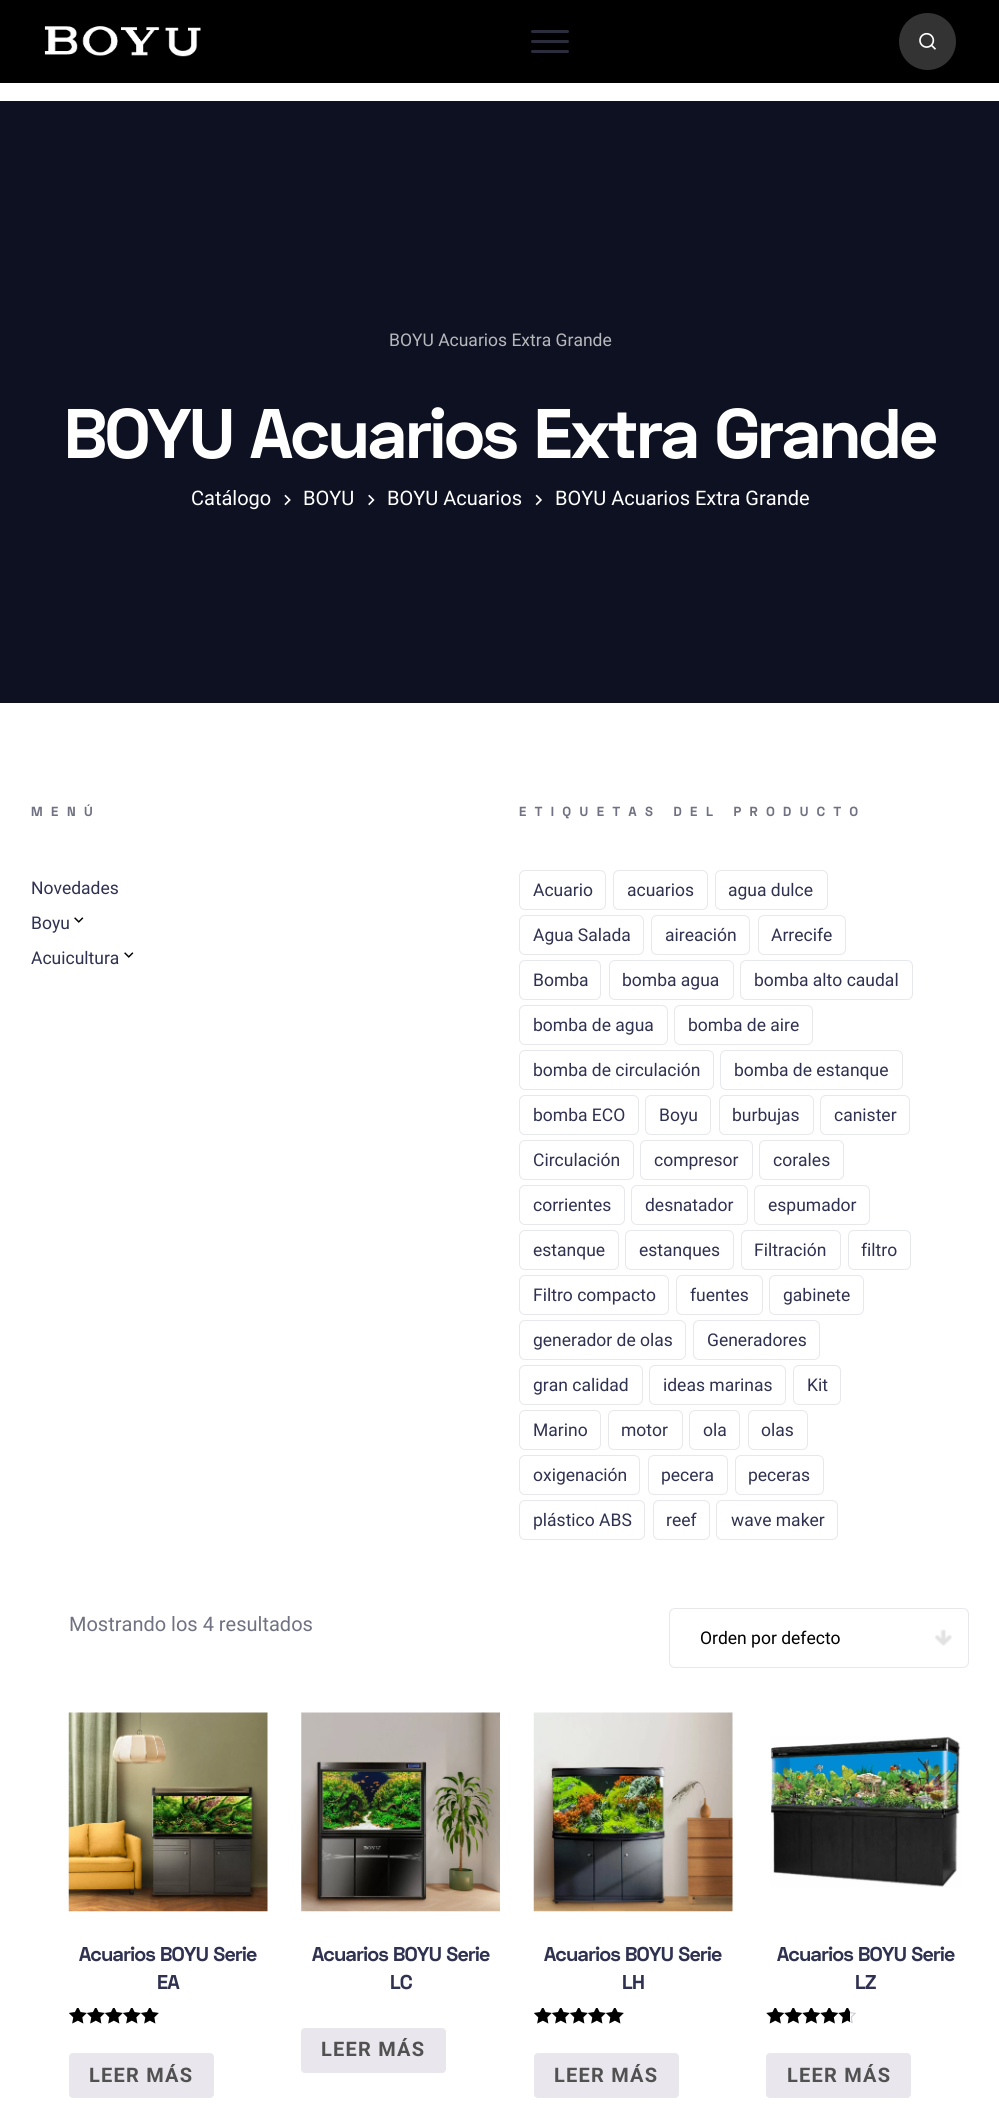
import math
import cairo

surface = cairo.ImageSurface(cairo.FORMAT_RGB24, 999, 2104)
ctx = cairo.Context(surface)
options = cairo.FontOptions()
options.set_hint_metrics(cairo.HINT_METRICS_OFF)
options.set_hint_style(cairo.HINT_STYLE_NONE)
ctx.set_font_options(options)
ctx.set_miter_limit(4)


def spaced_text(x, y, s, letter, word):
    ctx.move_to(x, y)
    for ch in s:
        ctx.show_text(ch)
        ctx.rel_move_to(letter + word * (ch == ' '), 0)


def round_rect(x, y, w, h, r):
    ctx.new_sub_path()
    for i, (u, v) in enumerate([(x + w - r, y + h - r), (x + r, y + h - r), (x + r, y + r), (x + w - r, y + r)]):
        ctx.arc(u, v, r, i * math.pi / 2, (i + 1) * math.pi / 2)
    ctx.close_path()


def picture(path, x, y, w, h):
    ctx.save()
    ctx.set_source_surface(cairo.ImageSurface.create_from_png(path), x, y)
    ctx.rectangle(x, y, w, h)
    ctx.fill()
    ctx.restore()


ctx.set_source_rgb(1, 1, 1)
ctx.paint()
ctx.set_source_rgb(0, 0, 0)
ctx.rectangle(0, 0, 999, 83)
ctx.fill()
picture("img1.png", 44, 26, 157, 31)
ctx.set_source_rgb(0.173, 0.176, 0.235)
round_rect(531, 30, 38, 3, 1.5)
ctx.fill()
round_rect(531, 40, 38, 3, 1.5)
ctx.fill()
round_rect(531, 50, 38, 3, 1.5)
ctx.fill()
ctx.set_source_rgb(0.2, 0.2, 0.2)
ctx.arc(927.5, 41.5, 28.5, 0, 2 * math.pi)
ctx.fill()
picture("img2.png", 919, 32, 17, 18)
ctx.set_source_rgb(0.055, 0.067, 0.129)
ctx.rectangle(0, 101, 999, 602)
ctx.fill()
ctx.select_font_face("Roboto")
ctx.set_font_size(17.5)
ctx.set_source_rgb(0.718, 0.722, 0.737)
ctx.move_to(389, 346)
ctx.show_text("BOYU Acuarios Extra Grande")
ctx.select_font_face("Space Grotesk", cairo.FONT_SLANT_NORMAL, cairo.FONT_WEIGHT_BOLD)
ctx.set_font_size(70)
ctx.set_source_rgb(1, 1, 1)
spaced_text(64, 458, "BOYU Acuarios Extra Grande", -1.75, 0)
ctx.select_font_face("Roboto")
ctx.set_font_size(20)
ctx.move_to(191, 505)
ctx.show_text("Catálogo")
picture("img3.png", 284, 494, 7, 12)
ctx.move_to(303, 505)
ctx.show_text("BOYU")
picture("img4.png", 368, 494, 7, 12)
ctx.move_to(387, 505)
ctx.show_text("BOYU Acuarios")
picture("img5.png", 535, 494, 7, 12)
ctx.move_to(555, 505)
ctx.show_text("BOYU Acuarios Extra Grande")
ctx.select_font_face("Space Grotesk", cairo.FONT_SLANT_NORMAL, cairo.FONT_WEIGHT_BOLD)
ctx.set_font_size(13.2)
ctx.set_source_rgb(0.439, 0.443, 0.51)
spaced_text(31, 816, "MENÚ", 8.5, 0)
ctx.select_font_face("Roboto")
ctx.set_font_size(17.5)
ctx.set_source_rgb(0.184, 0.192, 0.314)
ctx.move_to(31, 894)
ctx.show_text("Novedades")
ctx.move_to(31, 929)
ctx.show_text("Boyu")
picture("img6.png", 74, 917, 10, 6)
ctx.move_to(31, 964)
ctx.show_text("Acuicultura")
picture("img6.png", 124, 952, 10, 6)
ctx.select_font_face("Space Grotesk", cairo.FONT_SLANT_NORMAL, cairo.FONT_WEIGHT_BOLD)
ctx.set_font_size(13.2)
ctx.set_source_rgb(0.439, 0.443, 0.51)
spaced_text(519, 816, "ETIQUETAS DEL PRODUCTO", 8.5, 0)
round_rect(519.5, 870.5, 86, 39, 5.5)
ctx.set_source_rgb(0.906, 0.91, 0.922)
ctx.set_line_width(1)
ctx.stroke()
ctx.select_font_face("Roboto")
ctx.set_font_size(17.5)
ctx.set_source_rgb(0.184, 0.192, 0.314)
ctx.move_to(533, 896)
ctx.show_text("Acuario")
round_rect(613.5, 870.5, 94, 39, 5.5)
ctx.set_source_rgb(0.906, 0.91, 0.922)
ctx.stroke()
ctx.set_source_rgb(0.184, 0.192, 0.314)
ctx.move_to(627, 896)
ctx.show_text("acuarios")
round_rect(715.5, 870.5, 112, 39, 5.5)
ctx.set_source_rgb(0.906, 0.91, 0.922)
ctx.stroke()
ctx.set_source_rgb(0.184, 0.192, 0.314)
ctx.move_to(728, 896)
ctx.show_text("agua dulce")
round_rect(519.5, 915.5, 124, 39, 5.5)
ctx.set_source_rgb(0.906, 0.91, 0.922)
ctx.stroke()
ctx.set_source_rgb(0.184, 0.192, 0.314)
ctx.move_to(533, 941)
ctx.show_text("Agua Salada")
round_rect(651.5, 915.5, 98, 39, 5.5)
ctx.set_source_rgb(0.906, 0.91, 0.922)
ctx.stroke()
ctx.set_source_rgb(0.184, 0.192, 0.314)
ctx.move_to(665, 941)
ctx.show_text("aireación")
round_rect(758.5, 915.5, 87, 39, 5.5)
ctx.set_source_rgb(0.906, 0.91, 0.922)
ctx.stroke()
ctx.set_source_rgb(0.184, 0.192, 0.314)
ctx.move_to(771, 941)
ctx.show_text("Arrecife")
round_rect(519.5, 960.5, 81, 39, 5.5)
ctx.set_source_rgb(0.906, 0.91, 0.922)
ctx.stroke()
ctx.set_source_rgb(0.184, 0.192, 0.314)
ctx.move_to(533, 986)
ctx.show_text("Bomba")
round_rect(609.5, 960.5, 124, 39, 5.5)
ctx.set_source_rgb(0.906, 0.91, 0.922)
ctx.stroke()
ctx.set_source_rgb(0.184, 0.192, 0.314)
ctx.move_to(622, 986)
ctx.show_text("bomba agua")
round_rect(740.5, 960.5, 172, 39, 5.5)
ctx.set_source_rgb(0.906, 0.91, 0.922)
ctx.stroke()
ctx.set_source_rgb(0.184, 0.192, 0.314)
ctx.move_to(754, 986)
ctx.show_text("bomba alto caudal")
round_rect(519.5, 1005.5, 148, 39, 5.5)
ctx.set_source_rgb(0.906, 0.91, 0.922)
ctx.stroke()
ctx.set_source_rgb(0.184, 0.192, 0.314)
ctx.move_to(533, 1031)
ctx.show_text("bomba de agua")
round_rect(674.5, 1005.5, 138, 39, 5.5)
ctx.set_source_rgb(0.906, 0.91, 0.922)
ctx.stroke()
ctx.set_source_rgb(0.184, 0.192, 0.314)
ctx.move_to(688, 1031)
ctx.show_text("bomba de aire")
round_rect(519.5, 1050.5, 194, 39, 5.5)
ctx.set_source_rgb(0.906, 0.91, 0.922)
ctx.stroke()
ctx.set_source_rgb(0.184, 0.192, 0.314)
ctx.move_to(533, 1076)
ctx.show_text("bomba de circulación")
round_rect(720.5, 1050.5, 182, 39, 5.5)
ctx.set_source_rgb(0.906, 0.91, 0.922)
ctx.stroke()
ctx.set_source_rgb(0.184, 0.192, 0.314)
ctx.move_to(734, 1076)
ctx.show_text("bomba de estanque")
round_rect(519.5, 1095.5, 119, 39, 5.5)
ctx.set_source_rgb(0.906, 0.91, 0.922)
ctx.stroke()
ctx.set_source_rgb(0.184, 0.192, 0.314)
ctx.move_to(533, 1121)
ctx.show_text("bomba ECO")
round_rect(645.5, 1095.5, 65, 39, 5.5)
ctx.set_source_rgb(0.906, 0.91, 0.922)
ctx.stroke()
ctx.set_source_rgb(0.184, 0.192, 0.314)
ctx.move_to(659, 1121)
ctx.show_text("Boyu")
round_rect(719.5, 1095.5, 94, 39, 5.5)
ctx.set_source_rgb(0.906, 0.91, 0.922)
ctx.stroke()
ctx.set_source_rgb(0.184, 0.192, 0.314)
ctx.move_to(732, 1121)
ctx.show_text("burbujas")
round_rect(820.5, 1095.5, 89, 39, 5.5)
ctx.set_source_rgb(0.906, 0.91, 0.922)
ctx.stroke()
ctx.set_source_rgb(0.184, 0.192, 0.314)
ctx.move_to(834, 1121)
ctx.show_text("canister")
round_rect(519.5, 1140.5, 114, 39, 5.5)
ctx.set_source_rgb(0.906, 0.91, 0.922)
ctx.stroke()
ctx.set_source_rgb(0.184, 0.192, 0.314)
ctx.move_to(533, 1166)
ctx.show_text("Circulación")
round_rect(640.5, 1140.5, 112, 39, 5.5)
ctx.set_source_rgb(0.906, 0.91, 0.922)
ctx.stroke()
ctx.set_source_rgb(0.184, 0.192, 0.314)
ctx.move_to(654, 1166)
ctx.show_text("compresor")
round_rect(759.5, 1140.5, 84, 39, 5.5)
ctx.set_source_rgb(0.906, 0.91, 0.922)
ctx.stroke()
ctx.set_source_rgb(0.184, 0.192, 0.314)
ctx.move_to(773, 1166)
ctx.show_text("corales")
round_rect(519.5, 1185.5, 105, 39, 5.5)
ctx.set_source_rgb(0.906, 0.91, 0.922)
ctx.stroke()
ctx.set_source_rgb(0.184, 0.192, 0.314)
ctx.move_to(533, 1211)
ctx.show_text("corrientes")
round_rect(631.5, 1185.5, 116, 39, 5.5)
ctx.set_source_rgb(0.906, 0.91, 0.922)
ctx.stroke()
ctx.set_source_rgb(0.184, 0.192, 0.314)
ctx.move_to(645, 1211)
ctx.show_text("desnatador")
round_rect(754.5, 1185.5, 115, 39, 5.5)
ctx.set_source_rgb(0.906, 0.91, 0.922)
ctx.stroke()
ctx.set_source_rgb(0.184, 0.192, 0.314)
ctx.move_to(768, 1211)
ctx.show_text("espumador")
round_rect(519.5, 1230.5, 99, 39, 5.5)
ctx.set_source_rgb(0.906, 0.91, 0.922)
ctx.stroke()
ctx.set_source_rgb(0.184, 0.192, 0.314)
ctx.move_to(533, 1256)
ctx.show_text("estanque")
round_rect(625.5, 1230.5, 108, 39, 5.5)
ctx.set_source_rgb(0.906, 0.91, 0.922)
ctx.stroke()
ctx.set_source_rgb(0.184, 0.192, 0.314)
ctx.move_to(639, 1256)
ctx.show_text("estanques")
round_rect(741.5, 1230.5, 99, 39, 5.5)
ctx.set_source_rgb(0.906, 0.91, 0.922)
ctx.stroke()
ctx.set_source_rgb(0.184, 0.192, 0.314)
ctx.move_to(754, 1256)
ctx.show_text("Filtración")
round_rect(848.5, 1230.5, 62, 39, 5.5)
ctx.set_source_rgb(0.906, 0.91, 0.922)
ctx.stroke()
ctx.set_source_rgb(0.184, 0.192, 0.314)
ctx.move_to(861, 1256)
ctx.show_text("filtro")
round_rect(519.5, 1275.5, 149, 39, 5.5)
ctx.set_source_rgb(0.906, 0.91, 0.922)
ctx.stroke()
ctx.set_source_rgb(0.184, 0.192, 0.314)
ctx.move_to(533, 1301)
ctx.show_text("Filtro compacto")
round_rect(676.5, 1275.5, 86, 39, 5.5)
ctx.set_source_rgb(0.906, 0.91, 0.922)
ctx.stroke()
ctx.set_source_rgb(0.184, 0.192, 0.314)
ctx.move_to(690, 1301)
ctx.show_text("fuentes")
round_rect(769.5, 1275.5, 94, 39, 5.5)
ctx.set_source_rgb(0.906, 0.91, 0.922)
ctx.stroke()
ctx.set_source_rgb(0.184, 0.192, 0.314)
ctx.move_to(783, 1301)
ctx.show_text("gabinete")
round_rect(519.5, 1320.5, 166, 39, 5.5)
ctx.set_source_rgb(0.906, 0.91, 0.922)
ctx.stroke()
ctx.set_source_rgb(0.184, 0.192, 0.314)
ctx.move_to(533, 1346)
ctx.show_text("generador de olas")
round_rect(693.5, 1320.5, 126, 39, 5.5)
ctx.set_source_rgb(0.906, 0.91, 0.922)
ctx.stroke()
ctx.set_source_rgb(0.184, 0.192, 0.314)
ctx.move_to(707, 1346)
ctx.show_text("Generadores")
round_rect(519.5, 1365.5, 123, 39, 5.5)
ctx.set_source_rgb(0.906, 0.91, 0.922)
ctx.stroke()
ctx.set_source_rgb(0.184, 0.192, 0.314)
ctx.move_to(533, 1391)
ctx.show_text("gran calidad")
round_rect(649.5, 1365.5, 136, 39, 5.5)
ctx.set_source_rgb(0.906, 0.91, 0.922)
ctx.stroke()
ctx.set_source_rgb(0.184, 0.192, 0.314)
ctx.move_to(663, 1391)
ctx.show_text("ideas marinas")
round_rect(793.5, 1365.5, 47, 39, 5.5)
ctx.set_source_rgb(0.906, 0.91, 0.922)
ctx.stroke()
ctx.set_source_rgb(0.184, 0.192, 0.314)
ctx.move_to(807, 1391)
ctx.show_text("Kit")
round_rect(519.5, 1410.5, 81, 39, 5.5)
ctx.set_source_rgb(0.906, 0.91, 0.922)
ctx.stroke()
ctx.set_source_rgb(0.184, 0.192, 0.314)
ctx.move_to(533, 1436)
ctx.show_text("Marino")
round_rect(608.5, 1410.5, 74, 39, 5.5)
ctx.set_source_rgb(0.906, 0.91, 0.922)
ctx.stroke()
ctx.set_source_rgb(0.184, 0.192, 0.314)
ctx.move_to(621, 1436)
ctx.show_text("motor")
round_rect(689.5, 1410.5, 50, 39, 5.5)
ctx.set_source_rgb(0.906, 0.91, 0.922)
ctx.stroke()
ctx.set_source_rgb(0.184, 0.192, 0.314)
ctx.move_to(703, 1436)
ctx.show_text("ola")
round_rect(748.5, 1410.5, 59, 39, 5.5)
ctx.set_source_rgb(0.906, 0.91, 0.922)
ctx.stroke()
ctx.set_source_rgb(0.184, 0.192, 0.314)
ctx.move_to(761, 1436)
ctx.show_text("olas")
round_rect(519.5, 1455.5, 120, 39, 5.5)
ctx.set_source_rgb(0.906, 0.91, 0.922)
ctx.stroke()
ctx.set_source_rgb(0.184, 0.192, 0.314)
ctx.move_to(533, 1481)
ctx.show_text("oxigenación")
round_rect(648.5, 1455.5, 79, 39, 5.5)
ctx.set_source_rgb(0.906, 0.91, 0.922)
ctx.stroke()
ctx.set_source_rgb(0.184, 0.192, 0.314)
ctx.move_to(661, 1481)
ctx.show_text("pecera")
round_rect(735.5, 1455.5, 88, 39, 5.5)
ctx.set_source_rgb(0.906, 0.91, 0.922)
ctx.stroke()
ctx.set_source_rgb(0.184, 0.192, 0.314)
ctx.move_to(748, 1481)
ctx.show_text("peceras")
round_rect(519.5, 1500.5, 125, 39, 5.5)
ctx.set_source_rgb(0.906, 0.91, 0.922)
ctx.stroke()
ctx.set_source_rgb(0.184, 0.192, 0.314)
ctx.move_to(533, 1526)
ctx.show_text("plástico ABS")
round_rect(653.5, 1500.5, 56, 39, 5.5)
ctx.set_source_rgb(0.906, 0.91, 0.922)
ctx.stroke()
ctx.set_source_rgb(0.184, 0.192, 0.314)
ctx.move_to(666, 1526)
ctx.show_text("reef")
round_rect(716.5, 1500.5, 121, 39, 5.5)
ctx.set_source_rgb(0.906, 0.91, 0.922)
ctx.stroke()
ctx.set_source_rgb(0.184, 0.192, 0.314)
ctx.move_to(731, 1526)
ctx.show_text("wave maker")
ctx.set_font_size(20)
ctx.set_source_rgb(0.439, 0.443, 0.51)
ctx.move_to(69, 1631)
ctx.show_text("Mostrando los 4 resultados")
picture("img7.png", 935, 1629, 17, 17)
round_rect(669.5, 1608.5, 299, 59, 5.5)
ctx.set_source_rgb(0.906, 0.91, 0.922)
ctx.stroke()
ctx.set_font_size(17.5)
ctx.set_source_rgb(0, 0, 0)
ctx.move_to(700, 1644)
ctx.show_text("Orden por defecto")
picture("img8.png", 68, 1712, 200, 200)
ctx.select_font_face("Space Grotesk", cairo.FONT_SLANT_NORMAL, cairo.FONT_WEIGHT_BOLD)
ctx.set_font_size(20)
ctx.set_source_rgb(0.184, 0.192, 0.314)
spaced_text(79, 1961, "Acuarios BOYU Serie", -0.5, 0)
spaced_text(157, 1989, "EA", -0.5, 0)
picture("img9.png", 69, 2008, 90, 16)
picture("img10.png", 69, 2008, 90, 16)
ctx.set_source_rgb(0.914, 0.902, 0.929)
round_rect(69, 2053, 145, 45, 4)
ctx.fill()
ctx.select_font_face("Roboto", cairo.FONT_SLANT_NORMAL, cairo.FONT_WEIGHT_BOLD)
ctx.set_source_rgb(0.318, 0.318, 0.318)
spaced_text(89, 2082, "LEER MÁS", 1.25, 0)
picture("img11.png", 301, 1712, 199, 200)
ctx.select_font_face("Space Grotesk", cairo.FONT_SLANT_NORMAL, cairo.FONT_WEIGHT_BOLD)
ctx.set_source_rgb(0.184, 0.192, 0.314)
spaced_text(312, 1961, "Acuarios BOYU Serie", -0.5, 0)
spaced_text(390, 1989, "LC", -0.5, 0)
ctx.set_source_rgb(0.914, 0.902, 0.929)
round_rect(301, 2028, 145, 45, 4)
ctx.fill()
ctx.select_font_face("Roboto", cairo.FONT_SLANT_NORMAL, cairo.FONT_WEIGHT_BOLD)
ctx.set_source_rgb(0.318, 0.318, 0.318)
spaced_text(321, 2056, "LEER MÁS", 1.25, 0)
picture("img12.png", 533, 1712, 200, 200)
ctx.select_font_face("Space Grotesk", cairo.FONT_SLANT_NORMAL, cairo.FONT_WEIGHT_BOLD)
ctx.set_source_rgb(0.184, 0.192, 0.314)
spaced_text(544, 1961, "Acuarios BOYU Serie", -0.5, 0)
spaced_text(622, 1989, "LH", -0.5, 0)
picture("img9.png", 534, 2008, 90, 16)
picture("img10.png", 534, 2008, 90, 16)
ctx.set_source_rgb(0.914, 0.902, 0.929)
round_rect(534, 2053, 145, 45, 4)
ctx.fill()
ctx.select_font_face("Roboto", cairo.FONT_SLANT_NORMAL, cairo.FONT_WEIGHT_BOLD)
ctx.set_source_rgb(0.318, 0.318, 0.318)
spaced_text(554, 2082, "LEER MÁS", 1.25, 0)
picture("img13.png", 770, 1736, 191, 151)
ctx.select_font_face("Space Grotesk", cairo.FONT_SLANT_NORMAL, cairo.FONT_WEIGHT_BOLD)
ctx.set_source_rgb(0.184, 0.192, 0.314)
spaced_text(777, 1961, "Acuarios BOYU Serie", -0.5, 0)
spaced_text(855, 1989, "LZ", -0.5, 0)
picture("img14.png", 766, 2008, 90, 16)
picture("img15.png", 766, 2008, 84, 16)
ctx.set_source_rgb(0.914, 0.902, 0.929)
round_rect(766, 2053, 145, 45, 4)
ctx.fill()
ctx.select_font_face("Roboto", cairo.FONT_SLANT_NORMAL, cairo.FONT_WEIGHT_BOLD)
ctx.set_source_rgb(0.318, 0.318, 0.318)
spaced_text(787, 2082, "LEER MÁS", 1.25, 0)
surface.write_to_png("page.png")
